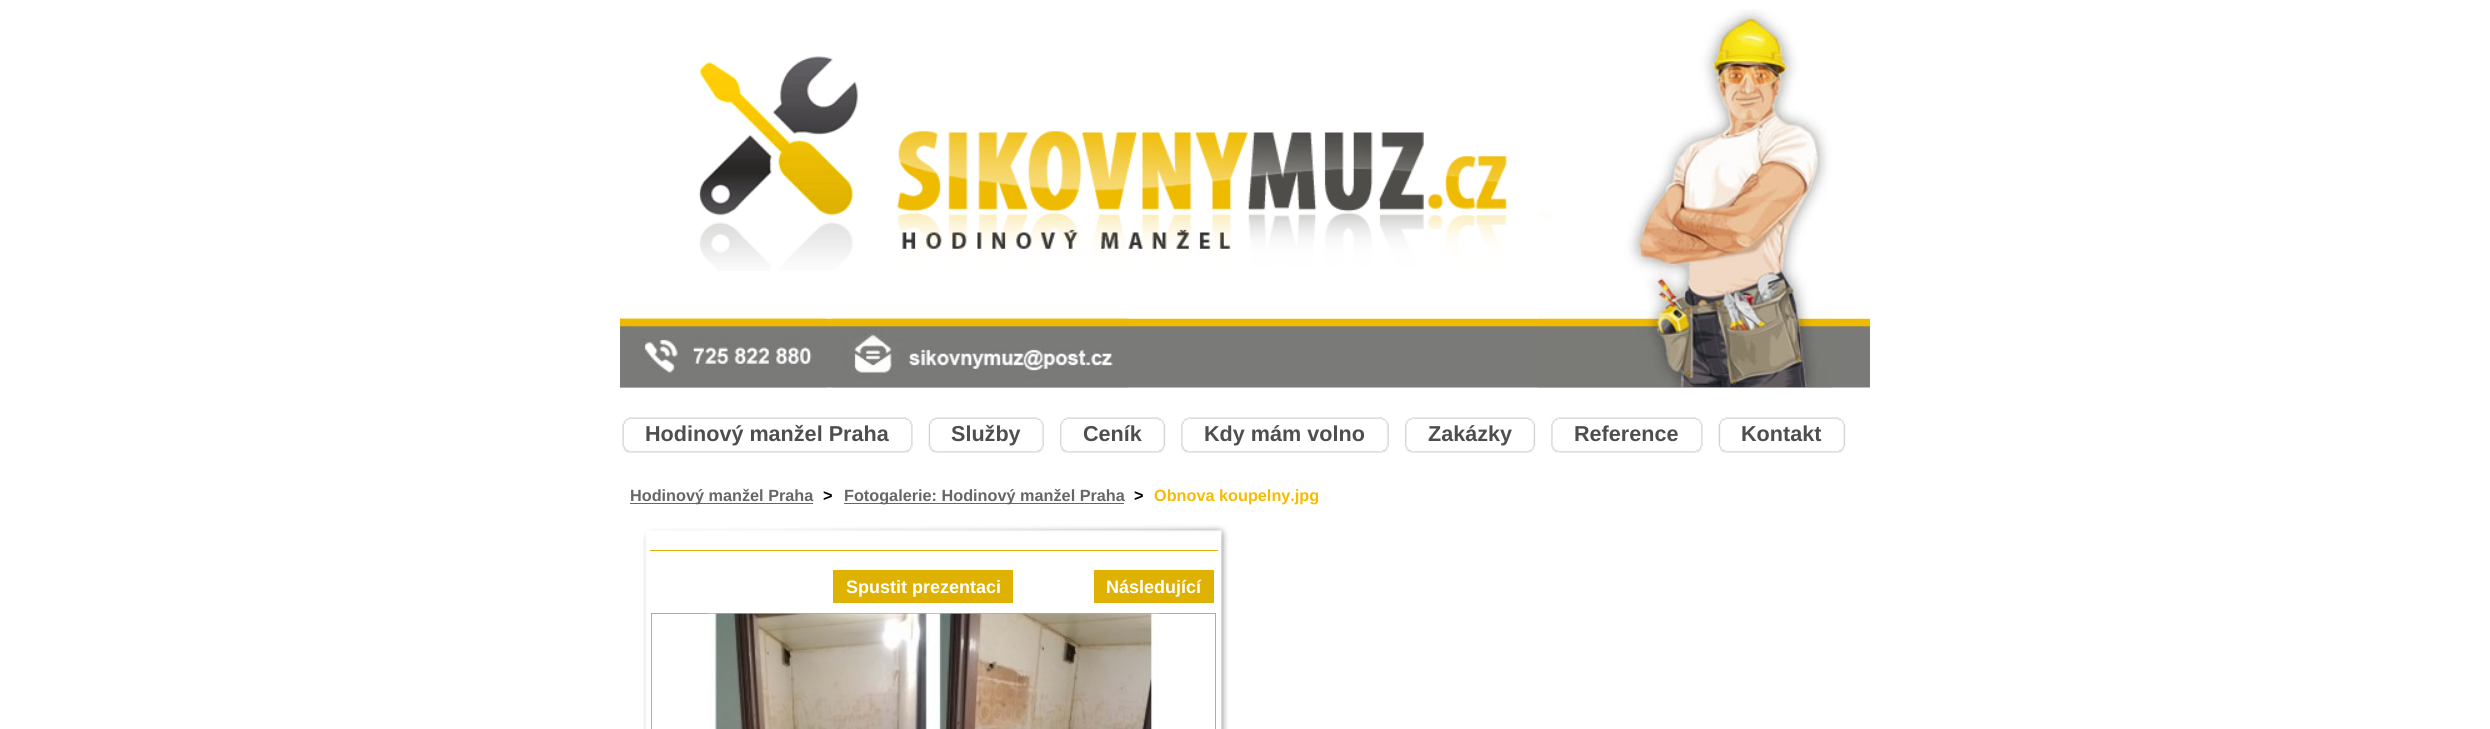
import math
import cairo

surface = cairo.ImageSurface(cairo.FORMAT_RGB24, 2490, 729)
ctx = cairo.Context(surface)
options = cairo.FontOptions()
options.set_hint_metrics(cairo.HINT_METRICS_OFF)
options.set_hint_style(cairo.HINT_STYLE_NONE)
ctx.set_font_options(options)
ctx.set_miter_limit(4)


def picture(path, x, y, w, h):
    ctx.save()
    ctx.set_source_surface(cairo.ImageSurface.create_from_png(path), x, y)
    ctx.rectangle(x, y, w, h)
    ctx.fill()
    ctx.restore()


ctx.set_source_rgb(1, 1, 1)
ctx.paint()
picture("img1.png", 620, 318, 1250, 70)
picture("img2.png", 698, 56, 809, 215)
picture("img3.png", 1537, 9, 296, 379)
picture("img4.png", 620, 318, 207, 70)
picture("img5.png", 832, 318, 296, 70)
picture("img6.png", 622, 417, 8, 36)
picture("img7.png", 630, 417, 283, 36)
ctx.select_font_face("Liberation Sans", cairo.FONT_SLANT_NORMAL, cairo.FONT_WEIGHT_BOLD)
ctx.set_font_size(21.6)
ctx.set_source_rgb(0.306, 0.306, 0.306)
ctx.move_to(645, 441)
ctx.show_text("Hodinový manžel Praha")
picture("img8.png", 928, 417, 9, 36)
picture("img9.png", 936, 417, 108, 36)
ctx.move_to(951, 441)
ctx.show_text("Služby")
picture("img10.png", 1060, 417, 8, 36)
picture("img11.png", 1067, 417, 99, 36)
ctx.move_to(1083, 441)
ctx.show_text("Ceník")
picture("img12.png", 1181, 417, 8, 36)
picture("img13.png", 1189, 417, 200, 36)
ctx.move_to(1204, 441)
ctx.show_text("Kdy mám volno")
picture("img14.png", 1405, 417, 8, 36)
picture("img15.png", 1412, 417, 124, 36)
ctx.move_to(1428, 441)
ctx.show_text("Zakázky")
picture("img16.png", 1551, 417, 8, 36)
picture("img17.png", 1559, 417, 144, 36)
ctx.move_to(1574, 441)
ctx.show_text("Reference")
picture("img8.png", 1718, 417, 9, 36)
picture("img18.png", 1726, 417, 120, 36)
ctx.move_to(1741, 441)
ctx.show_text("Kontakt")
ctx.set_source_rgb(0.4, 0.4, 0.4)
ctx.rectangle(630, 503, 183, 1)
ctx.fill()
ctx.set_font_size(16.25)
ctx.move_to(630, 501)
ctx.show_text("Hodinový manžel Praha")
ctx.set_source_rgb(0, 0, 0)
ctx.move_to(823, 501)
ctx.show_text(">")
ctx.set_source_rgb(0.4, 0.4, 0.4)
ctx.rectangle(844, 503, 280, 1)
ctx.fill()
ctx.move_to(844, 501)
ctx.show_text("Fotogalerie: Hodinový manžel Praha")
ctx.set_source_rgb(0, 0, 0)
ctx.move_to(1134, 501)
ctx.show_text(">")
ctx.set_source_rgb(0.965, 0.733, 0)
ctx.move_to(1154, 501)
ctx.show_text("Obnova koupelny.jpg")
picture("img19.png", 643, 542, 585, 187)
picture("img20.png", 643, 524, 586, 18)
ctx.set_source_rgb(0.871, 0.694, 0.008)
ctx.rectangle(650, 550, 568, 1)
ctx.fill()
ctx.rectangle(833, 570, 180, 33)
ctx.fill()
ctx.set_font_size(18)
ctx.set_source_rgb(1, 1, 1)
ctx.move_to(846, 593)
ctx.show_text("Spustit prezentaci")
ctx.set_source_rgb(0.871, 0.694, 0.008)
ctx.rectangle(1094, 570, 120, 33)
ctx.fill()
ctx.set_source_rgb(1, 1, 1)
ctx.move_to(1106, 593)
ctx.show_text("Následující")
ctx.rectangle(651.5, 613.5, 564, 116)
ctx.set_source_rgb(0.871, 0.694, 0.008)
ctx.set_line_width(1)
ctx.stroke()
picture("img21.png", 708, 613, 451, 116)
surface.write_to_png("page.png")
